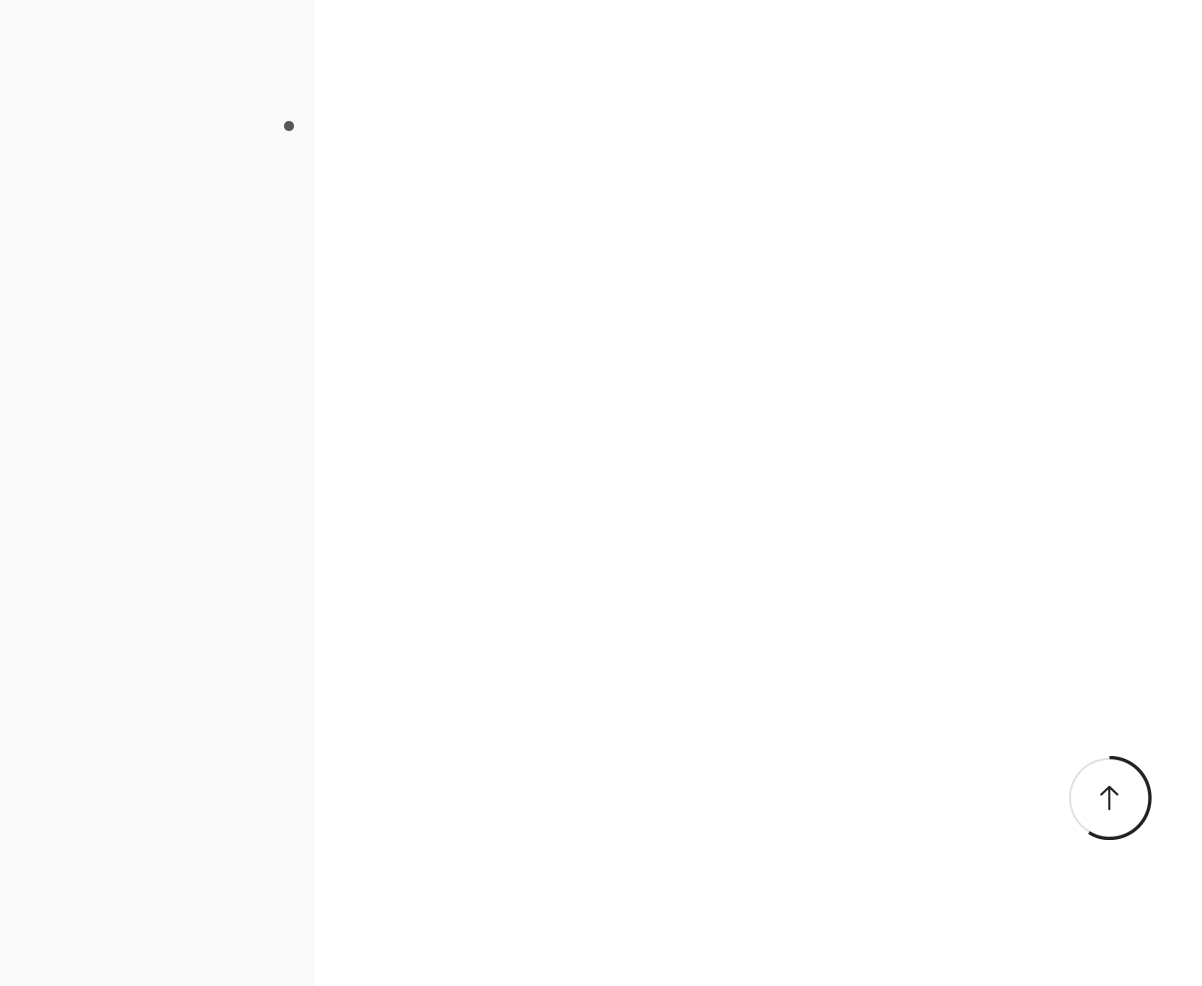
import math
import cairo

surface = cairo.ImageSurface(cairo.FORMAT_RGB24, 1202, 986)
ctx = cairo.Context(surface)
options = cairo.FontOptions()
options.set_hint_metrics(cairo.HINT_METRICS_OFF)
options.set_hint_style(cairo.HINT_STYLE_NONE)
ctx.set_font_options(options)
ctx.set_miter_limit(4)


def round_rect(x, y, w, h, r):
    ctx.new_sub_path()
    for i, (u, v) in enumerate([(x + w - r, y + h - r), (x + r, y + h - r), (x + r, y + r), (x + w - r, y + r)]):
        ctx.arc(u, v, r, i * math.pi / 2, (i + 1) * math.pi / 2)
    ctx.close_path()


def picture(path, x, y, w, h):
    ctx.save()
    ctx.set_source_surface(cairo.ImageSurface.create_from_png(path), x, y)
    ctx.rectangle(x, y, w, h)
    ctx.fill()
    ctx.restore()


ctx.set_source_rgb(0.973, 0.973, 0.973)
ctx.paint()
ctx.set_source_rgb(0.333, 0.333, 0.333)
ctx.arc(289, 126, 5, 0, 2 * math.pi)
ctx.fill()
ctx.set_source_rgb(1, 1, 1)
ctx.rectangle(315, 0, 887, 986)
ctx.fill()
round_rect(1070, 759, 79, 78, 39)
ctx.set_source_rgb(0.882, 0.882, 0.882)
ctx.stroke()
ctx.save()
ctx.rectangle(1068, 756, 84, 84)
ctx.clip()
ctx.new_path()
ctx.move_to(1109.5, 757.5)
ctx.curve_to(1132, 757.5, 1150, 775.5, 1150, 798)
ctx.curve_to(1150, 820.5, 1132, 838.5, 1109.5, 838.5)
ctx.curve_to(1102, 838.5, 1095, 836.5, 1089, 832.5)
ctx.set_source_rgb(0.133, 0.133, 0.133)
ctx.set_line_width(3.3)
ctx.stroke()
ctx.restore()
picture("img1.png", 1100, 785, 19, 26)
surface.write_to_png("page.png")
